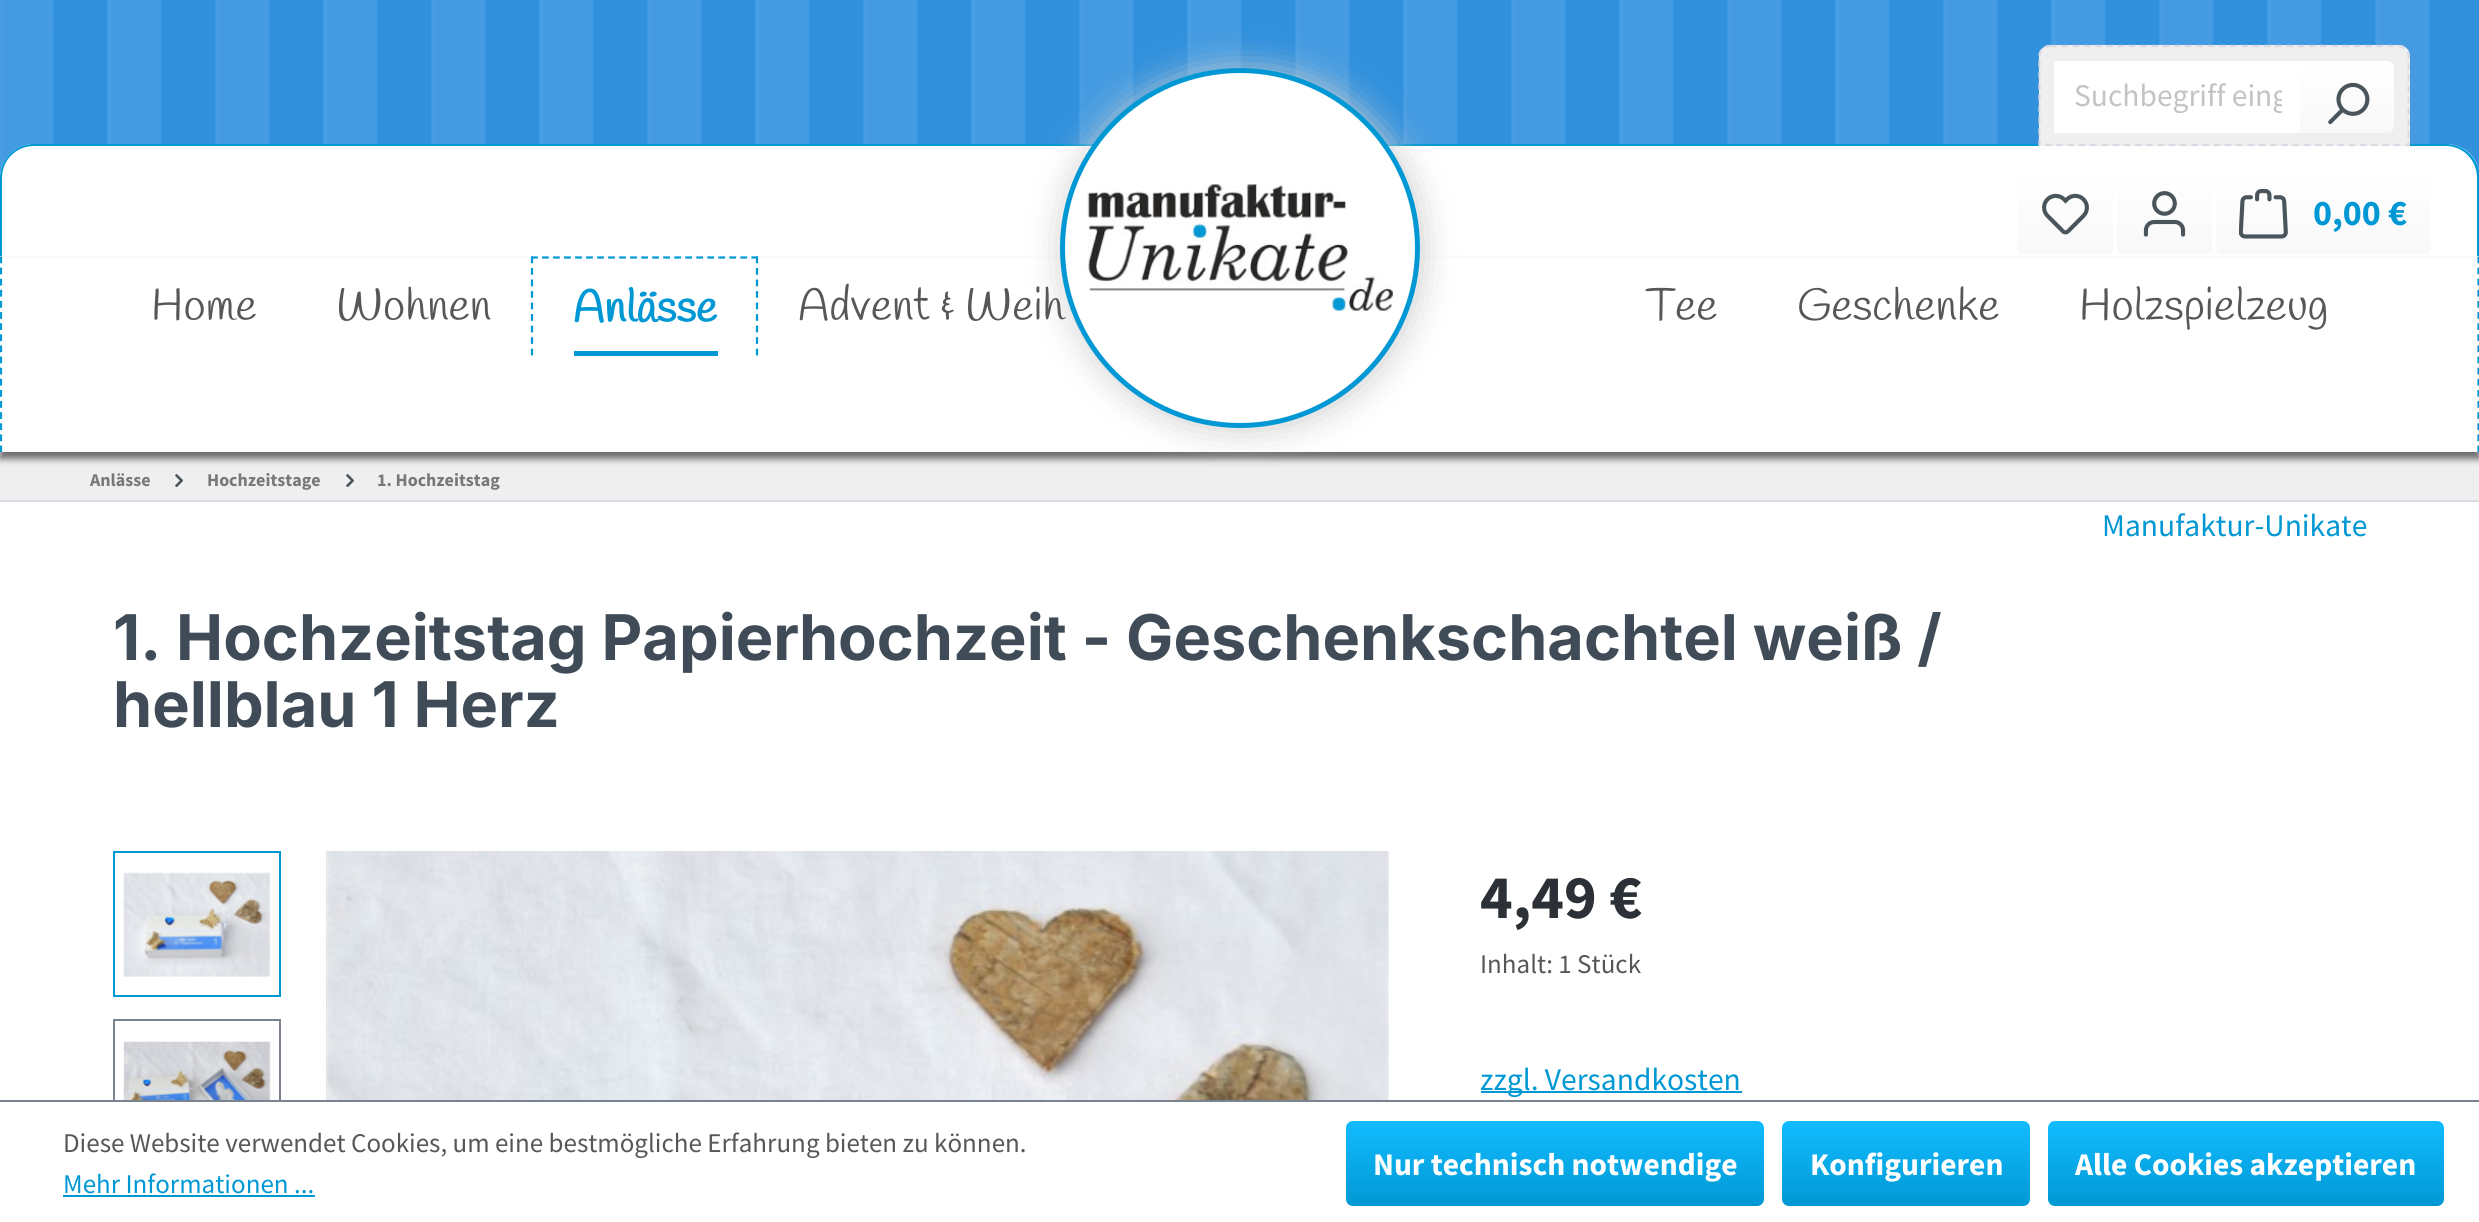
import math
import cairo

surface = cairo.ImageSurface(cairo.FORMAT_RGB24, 2479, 1222)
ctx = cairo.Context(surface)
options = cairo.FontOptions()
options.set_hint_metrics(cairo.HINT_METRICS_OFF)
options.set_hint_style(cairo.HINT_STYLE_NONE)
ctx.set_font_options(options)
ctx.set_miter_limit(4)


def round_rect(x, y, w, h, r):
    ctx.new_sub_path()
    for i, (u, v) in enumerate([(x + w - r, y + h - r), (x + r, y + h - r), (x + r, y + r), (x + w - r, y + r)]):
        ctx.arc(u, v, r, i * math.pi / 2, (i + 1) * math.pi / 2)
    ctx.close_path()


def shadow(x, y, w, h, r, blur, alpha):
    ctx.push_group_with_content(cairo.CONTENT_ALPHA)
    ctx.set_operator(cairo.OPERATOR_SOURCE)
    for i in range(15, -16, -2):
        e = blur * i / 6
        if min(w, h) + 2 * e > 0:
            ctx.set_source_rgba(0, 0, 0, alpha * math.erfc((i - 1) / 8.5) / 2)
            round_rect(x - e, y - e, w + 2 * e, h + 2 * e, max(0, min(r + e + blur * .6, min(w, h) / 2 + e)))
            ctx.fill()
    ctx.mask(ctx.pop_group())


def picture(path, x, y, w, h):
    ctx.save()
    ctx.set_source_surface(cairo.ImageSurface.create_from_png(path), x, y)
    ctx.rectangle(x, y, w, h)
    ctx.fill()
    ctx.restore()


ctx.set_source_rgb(1, 1, 1)
ctx.paint()
picture("img1.png", 0, 0, 2479, 178)
ctx.set_source_rgb(1, 1, 1)
ctx.new_path()
ctx.move_to(34, 144)
ctx.line_to(2446, 144)
ctx.curve_to(2465, 144, 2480, 159, 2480, 178)
ctx.line_to(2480, 257)
ctx.line_to(0, 257)
ctx.line_to(0, 178)
ctx.curve_to(0, 159, 15, 144, 34, 144)
ctx.close_path()
ctx.fill()
ctx.set_source_rgb(0, 0.596, 0.831)
ctx.set_fill_rule(cairo.FILL_RULE_EVEN_ODD)
ctx.new_path()
ctx.move_to(34, 144)
ctx.line_to(2446, 144)
ctx.curve_to(2464, 144, 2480, 159, 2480, 178)
ctx.line_to(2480, 256)
ctx.line_to(0, 256)
ctx.line_to(0, 178)
ctx.curve_to(0, 159, 15, 144, 34, 144)
ctx.close_path()
ctx.move_to(34, 146)
ctx.line_to(2446, 146)
ctx.curve_to(2463, 146, 2477, 160, 2477, 178)
ctx.line_to(2477, 256)
ctx.line_to(2, 256)
ctx.line_to(2, 178)
ctx.curve_to(2, 160, 16, 146, 34, 146)
ctx.close_path()
ctx.fill()
gradient = cairo.LinearGradient(2066, 171, 2066, 254)
gradient.add_color_stop_rgba(0, 1, 1, 1, 1)
gradient.add_color_stop_rgba(1, 0.973, 0.973, 0.98, 1)
ctx.set_source(gradient)
round_rect(2018, 171, 95, 83, 5)
ctx.fill()
gradient = cairo.LinearGradient(2165, 171, 2165, 254)
gradient.add_color_stop_rgba(0, 1, 1, 1, 1)
gradient.add_color_stop_rgba(1, 0.973, 0.973, 0.98, 1)
ctx.set_source(gradient)
round_rect(2117, 171, 95, 83, 5)
ctx.fill()
gradient = cairo.LinearGradient(2323, 171, 2323, 254)
gradient.add_color_stop_rgba(0, 1, 1, 1, 1)
gradient.add_color_stop_rgba(1, 0.973, 0.973, 0.98, 1)
ctx.set_source(gradient)
round_rect(2216, 171, 214, 83, 5)
ctx.fill()
ctx.set_source_rgb(0.937, 0.937, 0.937)
ctx.rectangle(0, 452, 2479, 48)
ctx.fill()
ctx.set_source_rgb(0.424, 0.424, 0.424)
shadow(0, 263, 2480, 196, 0, 3.5, 1)
ctx.set_source_rgb(1, 1, 1)
ctx.rectangle(0, 257, 2479, 195)
ctx.fill()
ctx.set_source_rgb(0.804, 0.804, 0.804)
shadow(1062, 70, 360, 360, 180, 17, 1)
ctx.select_font_face("Handlee")
ctx.set_font_size(45)
ctx.set_source_rgb(0.341, 0.341, 0.337)
ctx.move_to(798, 320)
ctx.show_text("Advent & Weih")
ctx.set_source_rgb(1, 1, 1)
ctx.new_path()
ctx.arc(1240, 248, 177.5, 0, 2 * math.pi)
ctx.fill_preserve()
ctx.set_source_rgb(0, 0.596, 0.831)
ctx.set_line_width(5)
ctx.stroke()
picture("img2.png", 1087, 184, 306, 127)
ctx.set_source_rgb(0.937, 0.937, 0.937)
ctx.new_path()
ctx.move_to(2050, 45)
ctx.line_to(2399, 45)
ctx.curve_to(2405, 45, 2410, 50, 2410, 56)
ctx.line_to(2410, 146)
ctx.line_to(2039, 146)
ctx.line_to(2039, 56)
ctx.curve_to(2039, 50, 2044, 45, 2050, 45)
ctx.close_path()
ctx.fill()
ctx.new_path()
ctx.move_to(2050, 46)
ctx.line_to(2398.5, 46)
ctx.curve_to(2404, 46, 2408.5, 50.5, 2408.5, 56)
ctx.line_to(2408.5, 145)
ctx.line_to(2039.5, 145)
ctx.line_to(2039.5, 56)
ctx.curve_to(2039.5, 50.5, 2044, 46, 2050, 46)
ctx.close_path()
ctx.set_source_rgb(0.855, 0.855, 0.898)
ctx.set_line_width(2.2)
ctx.set_dash([6.75, 4.5])
ctx.stroke()
ctx.set_source_rgb(1, 1, 1)
ctx.rectangle(2054, 61, 246, 72)
ctx.fill()
ctx.save()
ctx.set_fill_rule(cairo.FILL_RULE_WINDING)
ctx.rectangle(2075, 74, 207, 41)
ctx.clip()
ctx.select_font_face("Source Sans Pro")
ctx.set_font_size(31.5)
ctx.set_source_rgb(0.765, 0.765, 0.765)
ctx.move_to(2074, 106)
ctx.show_text("Suchbegriff eing")
ctx.restore()
gradient = cairo.LinearGradient(2347, 61, 2347, 133)
gradient.add_color_stop_rgba(0, 1, 1, 1, 1)
gradient.add_color_stop_rgba(1, 0.973, 0.973, 0.98, 1)
ctx.set_source(gradient)
ctx.new_path()
ctx.move_to(2300, 61)
ctx.line_to(2387, 61)
ctx.curve_to(2391, 61, 2394, 64, 2394, 68)
ctx.line_to(2394, 126)
ctx.curve_to(2394, 130, 2391, 133, 2387, 133)
ctx.line_to(2300, 133)
ctx.close_path()
ctx.fill()
picture("img3.png", 2328, 82, 42, 43)
picture("img4.png", 2042, 193, 47, 42)
picture("img5.png", 2143, 191, 43, 46)
picture("img6.png", 2239, 189, 49, 50)
ctx.select_font_face("Source Sans Pro", cairo.FONT_SLANT_NORMAL, cairo.FONT_WEIGHT_BOLD)
ctx.set_font_size(36)
ctx.set_source_rgb(0, 0.596, 0.831)
ctx.move_to(2313, 225)
ctx.show_text("0,00 €")
ctx.new_path()
ctx.move_to(2478.5, 256.5)
ctx.line_to(2478.5, 452)
ctx.set_dash([6.75, 4.37])
ctx.stroke()
ctx.new_path()
ctx.move_to(1, 256.5)
ctx.line_to(1, 452)
ctx.stroke()
ctx.select_font_face("Handlee")
ctx.set_font_size(45)
ctx.set_source_rgb(0.341, 0.341, 0.337)
ctx.move_to(151, 320)
ctx.show_text("Home")
ctx.move_to(336, 320)
ctx.show_text("Wohnen")
ctx.new_path()
ctx.move_to(531, 257.5)
ctx.line_to(758, 257.5)
ctx.set_source_rgb(0, 0.596, 0.831)
ctx.set_dash([6.75, 4.27])
ctx.stroke()
ctx.new_path()
ctx.move_to(757, 256.5)
ctx.line_to(757, 355.5)
ctx.set_dash([6.75, 4.77])
ctx.stroke()
ctx.new_path()
ctx.move_to(532, 256.5)
ctx.line_to(532, 355.5)
ctx.stroke()
ctx.rectangle(574, 351, 144, 5)
ctx.fill()
ctx.select_font_face("Handlee", cairo.FONT_SLANT_NORMAL, cairo.FONT_WEIGHT_BOLD)
ctx.move_to(573, 322)
ctx.show_text("Anlässe")
ctx.select_font_face("Handlee")
ctx.set_source_rgb(0.341, 0.341, 0.337)
ctx.move_to(1646, 320)
ctx.show_text("Tee")
ctx.move_to(1797, 320)
ctx.show_text("Geschenke")
ctx.move_to(2079, 320)
ctx.show_text("Holzspielzeug")
ctx.set_source_rgb(0.855, 0.855, 0.898)
ctx.rectangle(0, 500, 2479, 2)
ctx.fill()
ctx.select_font_face("Source Sans Pro", cairo.FONT_SLANT_NORMAL, cairo.FONT_WEIGHT_BOLD)
ctx.set_font_size(18)
ctx.set_source_rgb(0.471, 0.471, 0.471)
ctx.move_to(90, 486)
ctx.show_text("Anlässe")
picture("img7.png", 175, 474, 8, 13)
ctx.move_to(207, 486)
ctx.show_text("Hochzeitstage")
picture("img7.png", 346, 474, 8, 13)
ctx.move_to(377, 486)
ctx.show_text("1. Hochzeitstag")
ctx.select_font_face("Source Sans Pro")
ctx.set_font_size(31.5)
ctx.set_source_rgb(0, 0.596, 0.831)
ctx.move_to(2102, 536)
ctx.show_text("Manufaktur-Unikate")
ctx.select_font_face("Inter", cairo.FONT_SLANT_NORMAL, cairo.FONT_WEIGHT_BOLD)
ctx.set_font_size(63)
ctx.set_source_rgb(0.247, 0.298, 0.345)
ctx.move_to(113, 660)
ctx.show_text("1. Hochzeitstag Papierhochzeit - Geschenkschachtel weiß /")
ctx.move_to(113, 727)
ctx.show_text("hellblau 1 Herz")
ctx.rectangle(114, 852, 166, 144)
ctx.set_source_rgb(0, 0.596, 0.831)
ctx.set_line_width(2)
ctx.set_dash([])
ctx.stroke()
picture("img8.png", 123, 872, 148, 105)
ctx.rectangle(114, 1020, 166, 145)
ctx.set_source_rgb(0.475, 0.518, 0.565)
ctx.stroke()
picture("img9.png", 123, 1041, 148, 59)
picture("img10.png", 326, 851, 1, 249)
picture("img11.png", 326, 851, 1063, 249)
ctx.select_font_face("Source Sans Pro", cairo.FONT_SLANT_NORMAL, cairo.FONT_WEIGHT_BOLD)
ctx.set_font_size(62)
ctx.set_source_rgb(0.169, 0.192, 0.212)
ctx.move_to(1480, 918)
ctx.show_text("4,49 €")
ctx.select_font_face("Source Sans Pro")
ctx.set_font_size(27)
ctx.set_source_rgb(0.341, 0.341, 0.337)
ctx.move_to(1480, 973)
ctx.show_text("Inhalt: 1 Stück")
ctx.set_source_rgb(0, 0.596, 0.831)
ctx.rectangle(1481, 1091, 261, 2)
ctx.fill()
ctx.set_font_size(31.5)
ctx.move_to(1480, 1090)
ctx.show_text("zzgl. Versandkosten")
ctx.set_source_rgb(1, 1, 1)
ctx.rectangle(113, 1102, 168, 64)
ctx.fill()
ctx.set_source_rgb(0.475, 0.518, 0.565)
ctx.rectangle(0, 1100, 2479, 2)
ctx.fill()
ctx.set_font_size(27)
ctx.set_source_rgb(0.341, 0.341, 0.337)
ctx.move_to(63, 1152)
ctx.show_text("Diese Website verwendet Cookies, um eine bestmögliche Erfahrung bieten zu können.")
ctx.set_source_rgb(0, 0.596, 0.831)
ctx.move_to(63, 1193)
ctx.show_text("Mehr Informationen ...")
ctx.rectangle(63, 1195, 252, 2)
ctx.fill()
gradient = cairo.LinearGradient(1555, 1121, 1555, 1206)
gradient.add_color_stop_rgba(0, 0.071, 0.737, 1, 1)
gradient.add_color_stop_rgba(1, 0, 0.596, 0.831, 1)
ctx.set_source(gradient)
round_rect(1346, 1121, 418, 85, 7)
ctx.fill()
ctx.select_font_face("Source Sans Pro", cairo.FONT_SLANT_NORMAL, cairo.FONT_WEIGHT_BOLD)
ctx.set_font_size(31.5)
ctx.set_source_rgb(1, 1, 1)
ctx.move_to(1373, 1175)
ctx.show_text("Nur technisch notwendige")
gradient = cairo.LinearGradient(1906, 1121, 1906, 1206)
gradient.add_color_stop_rgba(0, 0.071, 0.737, 1, 1)
gradient.add_color_stop_rgba(1, 0, 0.596, 0.831, 1)
ctx.set_source(gradient)
round_rect(1782, 1121, 248, 85, 7)
ctx.fill()
ctx.set_source_rgb(1, 1, 1)
ctx.move_to(1810, 1175)
ctx.show_text("Konfigurieren")
gradient = cairo.LinearGradient(2246, 1121, 2246, 1206)
gradient.add_color_stop_rgba(0, 0.071, 0.737, 1, 1)
gradient.add_color_stop_rgba(1, 0, 0.596, 0.831, 1)
ctx.set_source(gradient)
round_rect(2048, 1121, 396, 85, 7)
ctx.fill()
ctx.set_source_rgb(1, 1, 1)
ctx.move_to(2075, 1175)
ctx.show_text("Alle Cookies akzeptieren")
surface.write_to_png("page.png")
